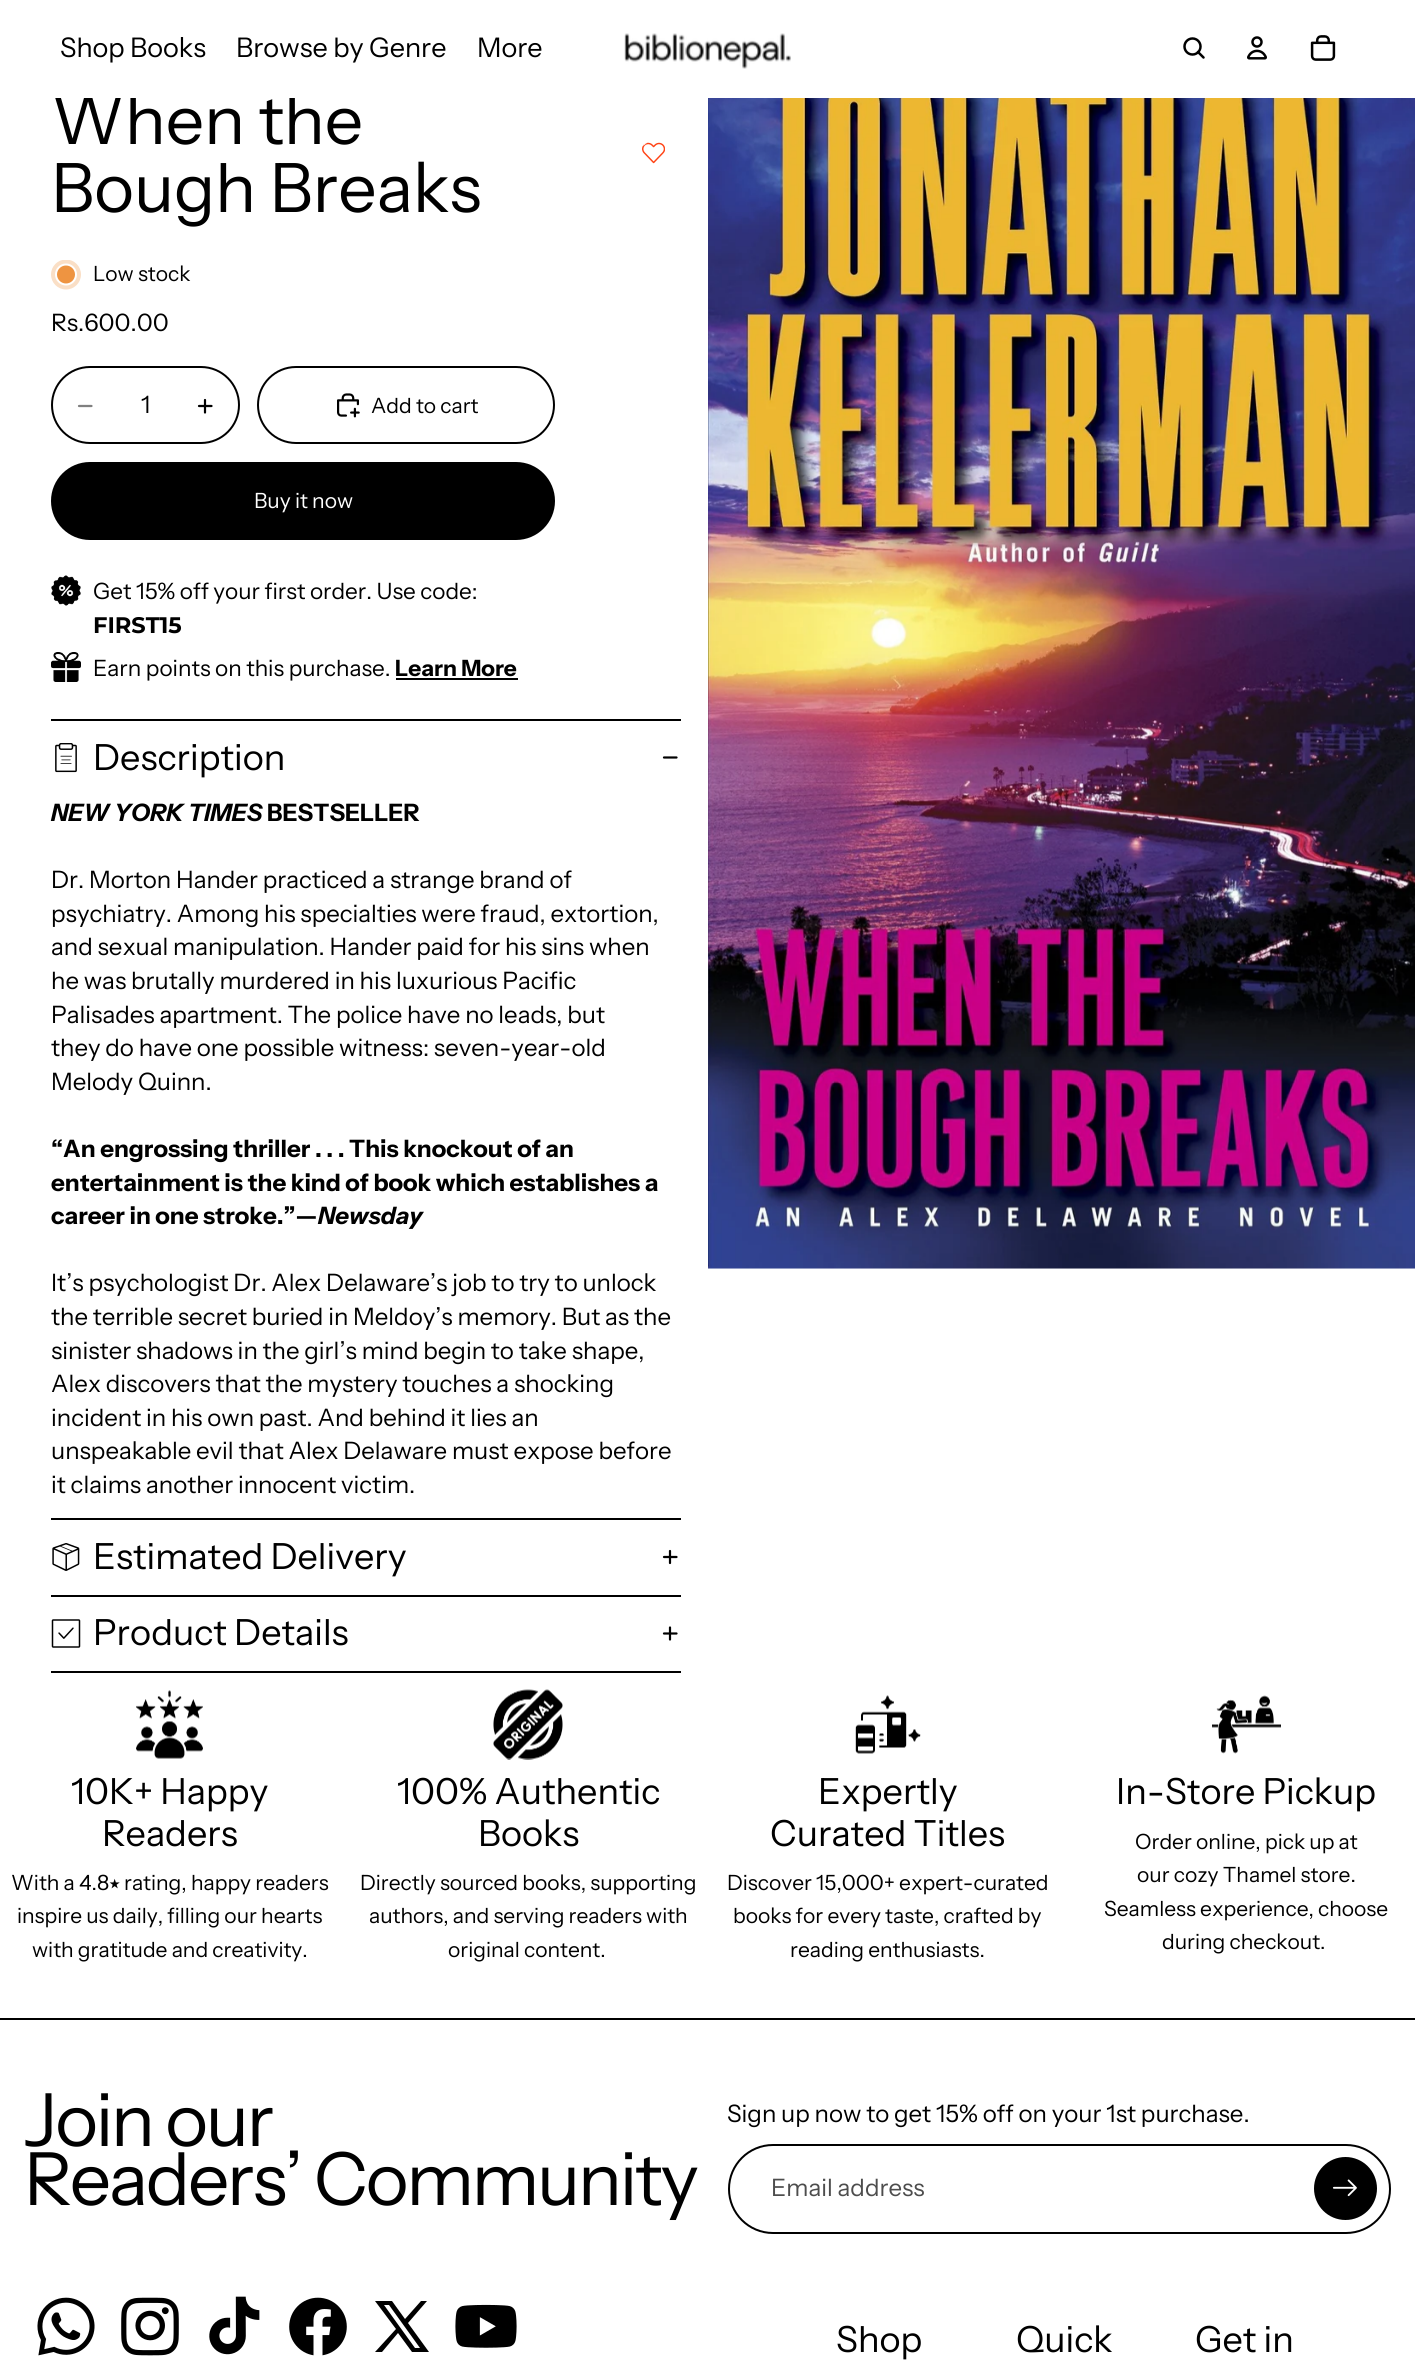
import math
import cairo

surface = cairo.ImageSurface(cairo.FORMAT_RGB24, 1415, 2375)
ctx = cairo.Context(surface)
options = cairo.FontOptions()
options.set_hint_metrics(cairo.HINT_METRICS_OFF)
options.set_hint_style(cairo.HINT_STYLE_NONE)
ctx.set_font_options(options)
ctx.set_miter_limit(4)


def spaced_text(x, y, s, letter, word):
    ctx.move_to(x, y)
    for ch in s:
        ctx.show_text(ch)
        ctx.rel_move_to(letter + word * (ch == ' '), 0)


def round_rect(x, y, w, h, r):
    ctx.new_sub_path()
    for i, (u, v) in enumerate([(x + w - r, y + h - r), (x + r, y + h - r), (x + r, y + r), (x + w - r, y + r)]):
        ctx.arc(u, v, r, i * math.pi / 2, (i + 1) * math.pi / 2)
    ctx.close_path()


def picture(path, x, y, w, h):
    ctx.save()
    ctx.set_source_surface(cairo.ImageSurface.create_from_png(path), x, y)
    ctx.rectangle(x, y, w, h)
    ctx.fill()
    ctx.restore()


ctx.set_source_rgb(1, 1, 1)
ctx.paint()
ctx.select_font_face("Instrument Sans")
ctx.set_font_size(68)
ctx.set_source_rgb(0, 0, 0)
ctx.move_to(51, 144)
ctx.show_text("When the")
ctx.set_source_rgb(1, 1, 1)
ctx.rectangle(54, 95, 242, 3)
ctx.fill()
ctx.set_font_size(27)
ctx.set_source_rgb(0, 0, 0)
ctx.move_to(60, 57)
ctx.show_text("Shop Books")
ctx.move_to(236, 57)
ctx.show_text("Browse by Genre")
ctx.move_to(477, 57)
ctx.show_text("More")
picture("img1.png", 624, 33, 167, 36)
ctx.arc(1192.5, 46.5, 8, 0, 2 * math.pi)
ctx.set_line_width(2.5)
ctx.stroke()
ctx.new_path()
ctx.move_to(1198, 52)
ctx.line_to(1203.5, 57.5)
ctx.set_line_cap(cairo.LINE_CAP_ROUND)
ctx.set_line_join(cairo.LINE_JOIN_ROUND)
ctx.stroke()
picture("img2.png", 1247, 36, 20, 24)
picture("img3.png", 1310, 35, 26, 26)
ctx.set_font_size(68)
ctx.move_to(51, 212)
ctx.show_text("Bough Breaks")
picture("img4.png", 642, 142, 23, 22)
ctx.save()
ctx.rectangle(51, 260, 30, 30)
ctx.clip()
ctx.set_source_rgb(0.98, 0.875, 0.776)
ctx.arc(66, 274.5, 15, 0, 2 * math.pi)
ctx.fill()
ctx.restore()
ctx.set_source_rgb(0.933, 0.58, 0.255)
ctx.arc(66, 274.5, 10, 0, 2 * math.pi)
ctx.fill_preserve()
ctx.set_source_rgb(1, 1, 1)
ctx.set_line_width(2)
ctx.set_line_cap(cairo.LINE_CAP_BUTT)
ctx.set_line_join(cairo.LINE_JOIN_MITER)
ctx.stroke()
ctx.set_font_size(21)
ctx.set_source_rgb(0, 0, 0)
ctx.move_to(93, 281)
ctx.show_text("Low stock")
ctx.set_font_size(24)
ctx.move_to(51, 331)
ctx.show_text("Rs.600.00")
round_rect(52, 367, 187, 76, 38)
ctx.stroke()
ctx.new_path()
ctx.move_to(79, 406)
ctx.line_to(91.5, 406)
ctx.set_source_rgb(0.502, 0.502, 0.502)
ctx.set_line_width(2.2)
ctx.set_line_cap(cairo.LINE_CAP_ROUND)
ctx.stroke()
ctx.set_source_rgb(0, 0, 0)
ctx.move_to(141, 413)
ctx.show_text("1")
ctx.new_path()
ctx.move_to(199, 406)
ctx.line_to(211.5, 406)
ctx.move_to(205, 400)
ctx.line_to(205, 412.5)
ctx.stroke()
round_rect(258, 367, 296, 76, 38)
ctx.set_line_width(2)
ctx.set_line_cap(cairo.LINE_CAP_BUTT)
ctx.stroke()
picture("img5.png", 337, 393, 23, 25)
ctx.set_font_size(21)
ctx.move_to(371, 413)
ctx.show_text("Add to cart")
round_rect(51, 462, 504, 78, 39)
ctx.fill()
ctx.set_source_rgb(1, 1, 1)
ctx.move_to(254, 508)
ctx.show_text("Buy it now")
picture("img6.png", 51, 575, 30, 31)
ctx.set_font_size(22.5)
ctx.set_source_rgb(0, 0, 0)
ctx.move_to(93, 599)
ctx.show_text("Get 15% off your first order. Use code:")
ctx.select_font_face("Montserrat", cairo.FONT_SLANT_NORMAL, cairo.FONT_WEIGHT_BOLD)
ctx.move_to(93, 633)
ctx.show_text("FIRST15")
picture("img7.png", 51, 652, 30, 30)
ctx.select_font_face("Instrument Sans")
ctx.move_to(93, 676)
ctx.show_text("Earn points on this purchase.")
ctx.select_font_face("Instrument Sans", cairo.FONT_SLANT_NORMAL, cairo.FONT_WEIGHT_BOLD)
ctx.move_to(395, 676)
ctx.show_text("Learn More")
ctx.rectangle(396, 678, 122, 2)
ctx.fill()
ctx.rectangle(51, 719, 630, 2)
ctx.fill()
picture("img8.png", 55, 743, 22, 30)
ctx.select_font_face("Instrument Sans")
ctx.set_font_size(36)
ctx.move_to(93, 770)
ctx.show_text("Description")
ctx.new_path()
ctx.move_to(676.5, 757.5)
ctx.line_to(664, 757.5)
ctx.set_line_width(2.2)
ctx.set_line_cap(cairo.LINE_CAP_ROUND)
ctx.stroke()
ctx.select_font_face("Instrument Sans", cairo.FONT_SLANT_ITALIC, cairo.FONT_WEIGHT_BOLD)
ctx.set_font_size(24)
ctx.move_to(51, 821)
ctx.show_text("NEW YORK TIMES")
ctx.select_font_face("Instrument Sans", cairo.FONT_SLANT_NORMAL, cairo.FONT_WEIGHT_BOLD)
ctx.move_to(267, 821)
ctx.show_text("BESTSELLER")
ctx.select_font_face("Instrument Sans")
ctx.move_to(51, 888)
ctx.show_text("Dr. Morton Hander practiced a strange brand of")
ctx.move_to(51, 922)
ctx.show_text("psychiatry. Among his specialties were fraud, extortion,")
ctx.move_to(51, 955)
ctx.show_text("and sexual manipulation. Hander paid for his sins when")
ctx.move_to(51, 989)
ctx.show_text("he was brutally murdered in his luxurious Pacific")
ctx.move_to(51, 1023)
ctx.show_text("Palisades apartment. The police have no leads, but")
ctx.move_to(51, 1056)
ctx.show_text("they do have one possible witness: seven-year-old")
ctx.move_to(51, 1090)
ctx.show_text("Melody Quinn.")
ctx.select_font_face("Instrument Sans", cairo.FONT_SLANT_NORMAL, cairo.FONT_WEIGHT_BOLD)
ctx.move_to(51, 1157)
ctx.show_text("“An engrossing thriller . . . This knockout of an")
ctx.move_to(51, 1191)
ctx.show_text("entertainment is the kind of book which establishes a")
ctx.move_to(51, 1224)
ctx.show_text("career in one stroke.”—")
ctx.select_font_face("Instrument Sans", cairo.FONT_SLANT_ITALIC, cairo.FONT_WEIGHT_BOLD)
ctx.move_to(318, 1224)
ctx.show_text("Newsday")
ctx.select_font_face("Instrument Sans")
ctx.move_to(51, 1291)
ctx.show_text("It’s psychologist Dr. Alex Delaware’s job to try to unlock")
ctx.move_to(51, 1325)
ctx.show_text("the terrible secret buried in Meldoy’s memory. But as the")
ctx.move_to(51, 1359)
ctx.show_text("sinister shadows in the girl’s mind begin to take shape,")
ctx.move_to(51, 1392)
ctx.show_text("Alex discovers that the mystery touches a shocking")
ctx.move_to(51, 1426)
ctx.show_text("incident in his own past. And behind it lies an")
ctx.move_to(51, 1459)
ctx.show_text("unspeakable evil that Alex Delaware must expose before")
ctx.move_to(51, 1493)
ctx.show_text("it claims another innocent victim.")
ctx.rectangle(51, 1518, 630, 2)
ctx.fill()
picture("img9.png", 52, 1543, 28, 28)
ctx.set_font_size(36)
ctx.move_to(93, 1569)
ctx.show_text("Estimated Delivery")
ctx.new_path()
ctx.move_to(664, 1557)
ctx.line_to(676.5, 1557)
ctx.move_to(670, 1551)
ctx.line_to(670, 1563)
ctx.stroke()
ctx.rectangle(51, 1595, 630, 2)
ctx.fill()
ctx.rectangle(51, 1671, 630, 2)
ctx.fill()
picture("img10.png", 51, 1619, 30, 29)
ctx.move_to(93, 1645)
ctx.show_text("Product Details")
ctx.new_path()
ctx.move_to(664, 1633.5)
ctx.line_to(676.5, 1633.5)
ctx.move_to(670, 1627.5)
ctx.line_to(670, 1639.5)
ctx.stroke()
picture("img11.png", 708, 98, 707, 1171)
picture("img12.png", 136, 1690, 67, 69)
ctx.move_to(71, 1804)
ctx.show_text("10K+ Happy")
ctx.move_to(102, 1846)
ctx.show_text("Readers")
ctx.set_font_size(21)
ctx.move_to(11, 1890)
ctx.show_text("With a 4.8")
ctx.select_font_face("FreeSans")
ctx.move_to(109, 1890)
ctx.show_text("⭑")
ctx.select_font_face("Instrument Sans")
ctx.move_to(124, 1890)
ctx.show_text("rating, happy readers")
ctx.move_to(17, 1923)
ctx.show_text("inspire us daily, filling our hearts")
ctx.move_to(32, 1957)
ctx.show_text("with gratitude and creativity.")
picture("img13.png", 493, 1689, 70, 71)
ctx.set_font_size(36)
ctx.move_to(397, 1804)
ctx.show_text("100% Authentic")
ctx.move_to(478, 1846)
ctx.show_text("Books")
ctx.set_font_size(21)
ctx.move_to(360, 1890)
ctx.show_text("Directly sourced books, supporting")
ctx.move_to(369, 1923)
ctx.show_text("authors, and serving readers with")
ctx.move_to(448, 1957)
ctx.show_text("original content.")
picture("img14.png", 855, 1695, 66, 59)
ctx.set_font_size(36)
ctx.move_to(818, 1804)
ctx.show_text("Expertly")
ctx.move_to(770, 1846)
ctx.show_text("Curated Titles")
ctx.set_font_size(21)
ctx.move_to(727, 1890)
ctx.show_text("Discover 15,000+ expert-curated")
ctx.move_to(733, 1923)
ctx.show_text("books for every taste, crafted by")
ctx.move_to(790, 1957)
ctx.show_text("reading enthusiasts.")
picture("img15.png", 1212, 1695, 69, 59)
ctx.set_font_size(36)
ctx.move_to(1116, 1804)
ctx.show_text("In-Store Pickup")
ctx.set_font_size(21)
ctx.move_to(1135, 1849)
ctx.show_text("Order online, pick up at")
ctx.move_to(1137, 1882)
ctx.show_text("our cozy Thamel store.")
ctx.move_to(1104, 1916)
ctx.show_text("Seamless experience, choose")
ctx.move_to(1162, 1949)
ctx.show_text("during checkout.")
ctx.rectangle(0, 2018, 1415, 2)
ctx.fill()
ctx.set_font_size(73.25)
spaced_text(24, 2146, "Join our", -2.2, 0)
spaced_text(24, 2205, "Readers’ Community", -2.2, 0)
ctx.set_font_size(24)
ctx.move_to(727, 2122)
ctx.show_text("Sign up now to get 15% off on your 1st purchase.")
round_rect(729, 2145, 661, 88, 44)
ctx.set_line_width(2)
ctx.set_line_cap(cairo.LINE_CAP_BUTT)
ctx.stroke()
ctx.set_source_rgb(0.302, 0.302, 0.302)
ctx.move_to(771, 2196)
ctx.show_text("Email address")
ctx.set_source_rgb(0, 0, 0)
ctx.new_path()
ctx.arc(1345.5, 2188.5, 31.5, 0, 2 * math.pi)
ctx.fill()
picture("img16.png", 1332, 2179, 25, 18)
picture("img17.png", 37, 2297, 58, 59)
picture("img18.png", 121, 2297, 58, 59)
picture("img19.png", 209, 2296, 51, 59)
picture("img20.png", 289, 2297, 58, 59)
ctx.set_fill_rule(cairo.FILL_RULE_EVEN_ODD)
ctx.new_path()
ctx.move_to(392, 2301)
ctx.line_to(405, 2319)
ctx.line_to(421, 2301)
ctx.line_to(427, 2301)
ctx.line_to(408, 2323)
ctx.line_to(429, 2352)
ctx.line_to(412, 2352)
ctx.line_to(398, 2333)
ctx.line_to(382, 2352)
ctx.line_to(375, 2352)
ctx.line_to(396, 2329)
ctx.line_to(375, 2301)
ctx.close_path()
ctx.move_to(415, 2348)
ctx.line_to(384, 2305)
ctx.line_to(389, 2305)
ctx.line_to(420, 2348)
ctx.close_path()
ctx.fill()
picture("img21.png", 455, 2304, 62, 44)
ctx.set_font_size(36)
ctx.move_to(836, 2352)
ctx.show_text("Shop")
ctx.move_to(1016, 2352)
ctx.show_text("Quick")
ctx.move_to(1195, 2352)
ctx.show_text("Get in")
surface.write_to_png("page.png")
